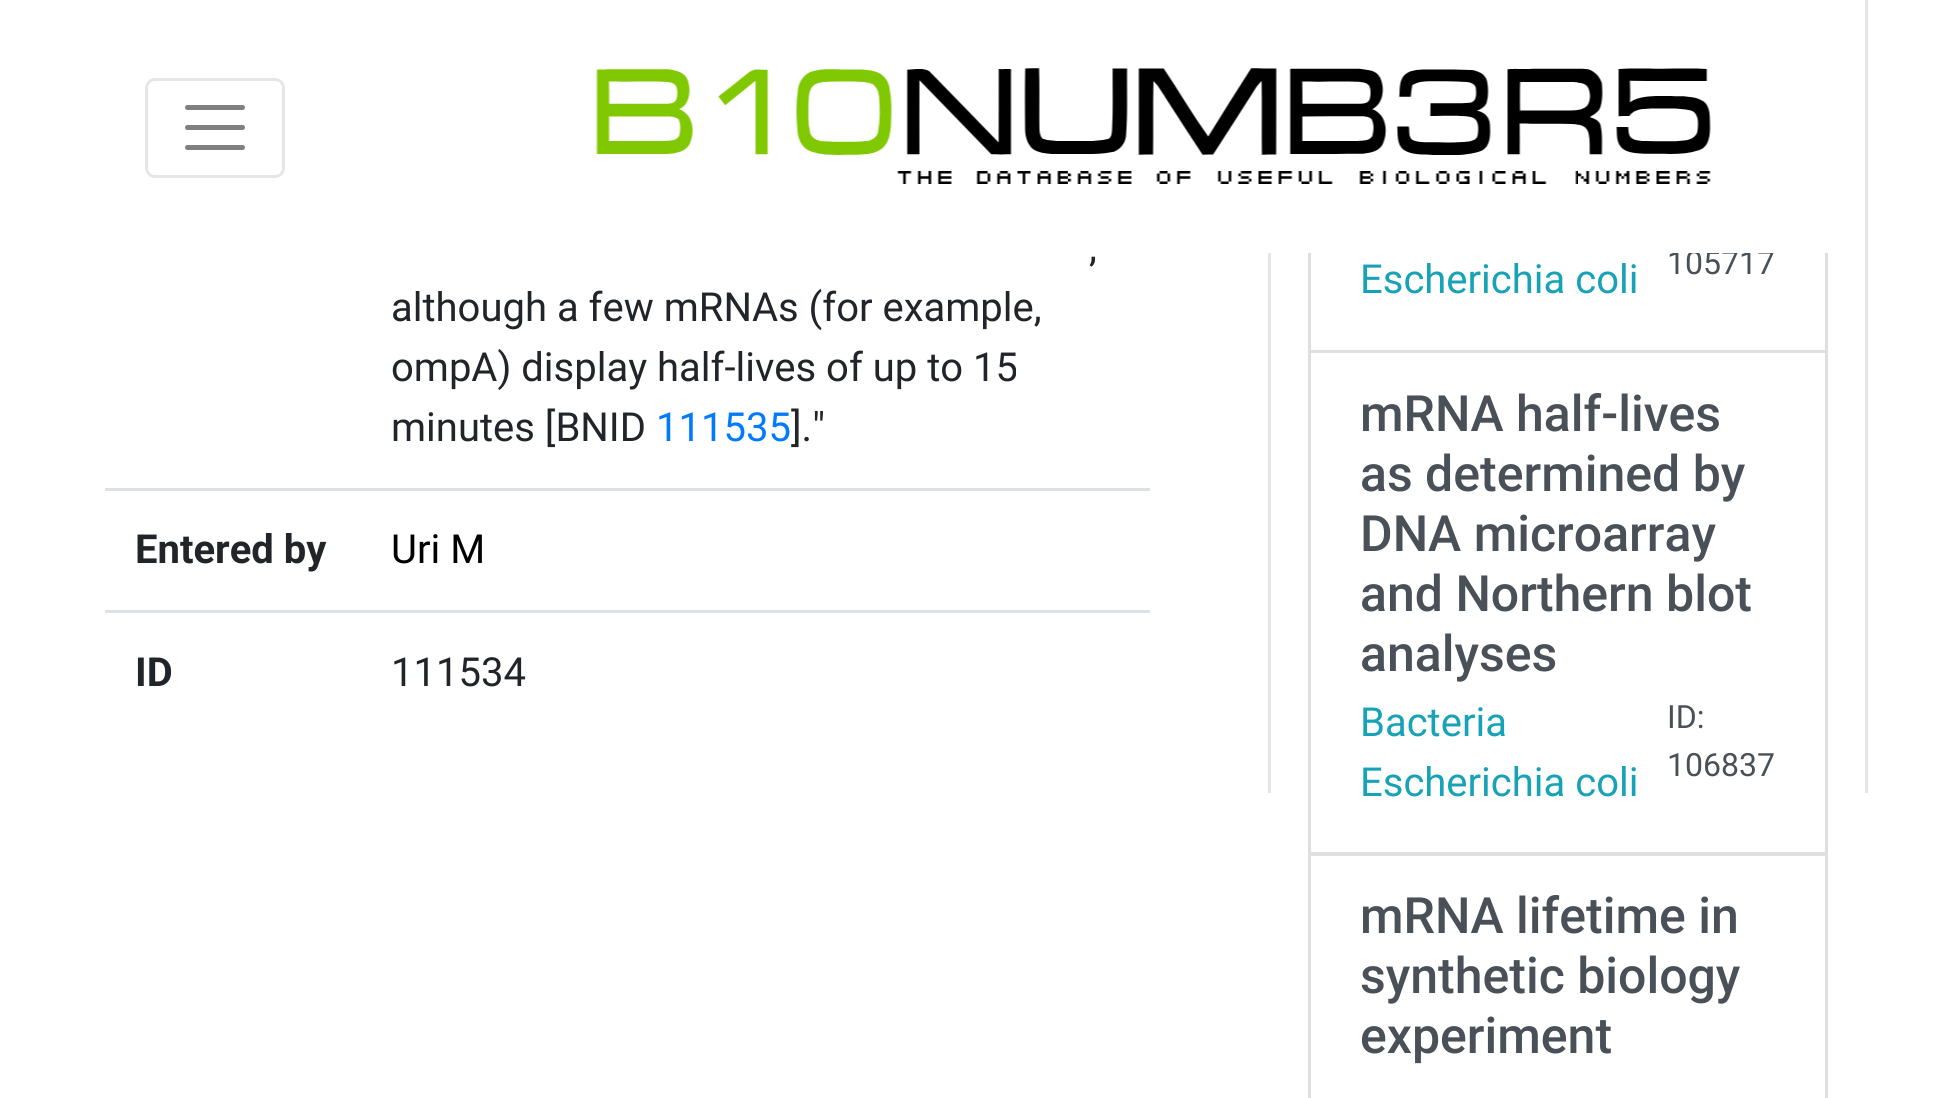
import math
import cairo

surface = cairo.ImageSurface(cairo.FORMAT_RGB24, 1934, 1098)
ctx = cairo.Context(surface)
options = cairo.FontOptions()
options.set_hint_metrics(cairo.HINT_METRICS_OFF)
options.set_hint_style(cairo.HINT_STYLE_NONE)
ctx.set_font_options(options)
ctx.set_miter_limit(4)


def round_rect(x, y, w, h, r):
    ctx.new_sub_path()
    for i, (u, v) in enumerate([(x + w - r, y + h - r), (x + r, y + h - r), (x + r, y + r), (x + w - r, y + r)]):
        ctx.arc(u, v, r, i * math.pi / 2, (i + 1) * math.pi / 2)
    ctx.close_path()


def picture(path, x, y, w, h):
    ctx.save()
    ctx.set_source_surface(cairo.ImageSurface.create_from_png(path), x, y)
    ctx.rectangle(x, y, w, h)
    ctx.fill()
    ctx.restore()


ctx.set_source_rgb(1, 1, 1)
ctx.paint()
ctx.rectangle(1309.5, 29.5, 517, 322)
ctx.set_source_rgb(0.875, 0.875, 0.875)
ctx.set_line_width(3)
ctx.stroke()
ctx.select_font_face("Roboto")
ctx.set_font_size(32)
ctx.set_source_rgb(0.286, 0.314, 0.341)
ctx.move_to(1667, 274)
ctx.show_text("105717")
ctx.set_source_rgb(1, 1, 1)
ctx.rectangle(1308, 28, 520, 225)
ctx.fill()
round_rect(146.5, 79.5, 137, 97, 8.5)
ctx.set_source_rgb(0.902, 0.902, 0.902)
ctx.stroke()
ctx.new_path()
ctx.move_to(187.5, 107.5)
ctx.line_to(242.5, 107.5)
ctx.move_to(187.5, 127.5)
ctx.line_to(242.5, 127.5)
ctx.move_to(187.5, 147.5)
ctx.line_to(242.5, 147.5)
ctx.set_source_rgb(0.502, 0.502, 0.502)
ctx.set_line_width(5)
ctx.set_line_cap(cairo.LINE_CAP_ROUND)
ctx.stroke()
picture("img1.png", 596, 68, 1115, 116)
ctx.set_font_size(40)
ctx.set_source_rgb(0.129, 0.145, 0.161)
ctx.move_to(1089, 261)
ctx.show_text(",")
ctx.move_to(391, 321)
ctx.show_text("although a few mRNAs (for example,")
ctx.move_to(391, 381)
ctx.show_text("ompA) display half-lives of up to 15")
ctx.move_to(391, 441)
ctx.show_text("minutes [BNID")
ctx.set_source_rgb(0, 0.482, 1)
ctx.move_to(656, 441)
ctx.show_text("111535")
ctx.set_source_rgb(0.129, 0.145, 0.161)
ctx.move_to(791, 441)
ctx.show_text("].\"")
ctx.select_font_face("Roboto", cairo.FONT_SLANT_NORMAL, cairo.FONT_WEIGHT_BOLD)
ctx.move_to(135, 563)
ctx.show_text("Entered by")
ctx.set_source_rgb(0.871, 0.886, 0.902)
ctx.rectangle(105, 488, 1045, 3)
ctx.fill()
ctx.select_font_face("Roboto")
ctx.set_source_rgb(0, 0, 0)
ctx.move_to(391, 563)
ctx.show_text("Uri M")
ctx.select_font_face("Roboto", cairo.FONT_SLANT_NORMAL, cairo.FONT_WEIGHT_BOLD)
ctx.set_source_rgb(0.129, 0.145, 0.161)
ctx.move_to(135, 686)
ctx.show_text("ID")
ctx.set_source_rgb(0.871, 0.886, 0.902)
ctx.rectangle(105, 610, 1045, 3)
ctx.fill()
ctx.select_font_face("Roboto")
ctx.set_source_rgb(0.129, 0.145, 0.161)
ctx.move_to(391, 686)
ctx.show_text("111534")
ctx.set_source_rgb(0.902, 0.902, 0.902)
ctx.rectangle(1865, 0, 3, 793)
ctx.fill()
ctx.rectangle(1268, 253, 3, 540)
ctx.fill()
ctx.set_source_rgb(0.09, 0.635, 0.722)
ctx.move_to(1360, 293)
ctx.show_text("Escherichia coli")
ctx.rectangle(1309.5, 351.5, 517, 502)
ctx.set_source_rgb(0.875, 0.875, 0.875)
ctx.set_line_width(3)
ctx.set_line_cap(cairo.LINE_CAP_BUTT)
ctx.stroke()
ctx.select_font_face("Roboto Medium")
ctx.set_font_size(50)
ctx.set_source_rgb(0.286, 0.314, 0.341)
ctx.move_to(1360, 431)
ctx.show_text("mRNA half-lives")
ctx.move_to(1360, 491)
ctx.show_text("as determined by")
ctx.move_to(1360, 551)
ctx.show_text("DNA microarray")
ctx.move_to(1360, 611)
ctx.show_text("and Northern blot")
ctx.move_to(1360, 671)
ctx.show_text("analyses")
ctx.select_font_face("Roboto")
ctx.set_font_size(40)
ctx.set_source_rgb(0.09, 0.635, 0.722)
ctx.move_to(1360, 736)
ctx.show_text("Bacteria")
ctx.move_to(1360, 796)
ctx.show_text("Escherichia coli")
ctx.set_font_size(32)
ctx.set_source_rgb(0.286, 0.314, 0.341)
ctx.move_to(1667, 728)
ctx.show_text("ID:")
ctx.move_to(1667, 776)
ctx.show_text("106837")
ctx.rectangle(1309.5, 854.5, 517, 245)
ctx.set_source_rgb(0.875, 0.875, 0.875)
ctx.stroke()
ctx.select_font_face("Roboto Medium")
ctx.set_font_size(50)
ctx.set_source_rgb(0.286, 0.314, 0.341)
ctx.move_to(1360, 933)
ctx.show_text("mRNA lifetime in")
ctx.move_to(1360, 993)
ctx.show_text("synthetic biology")
ctx.move_to(1360, 1053)
ctx.show_text("experiment")
surface.write_to_png("page.png")
